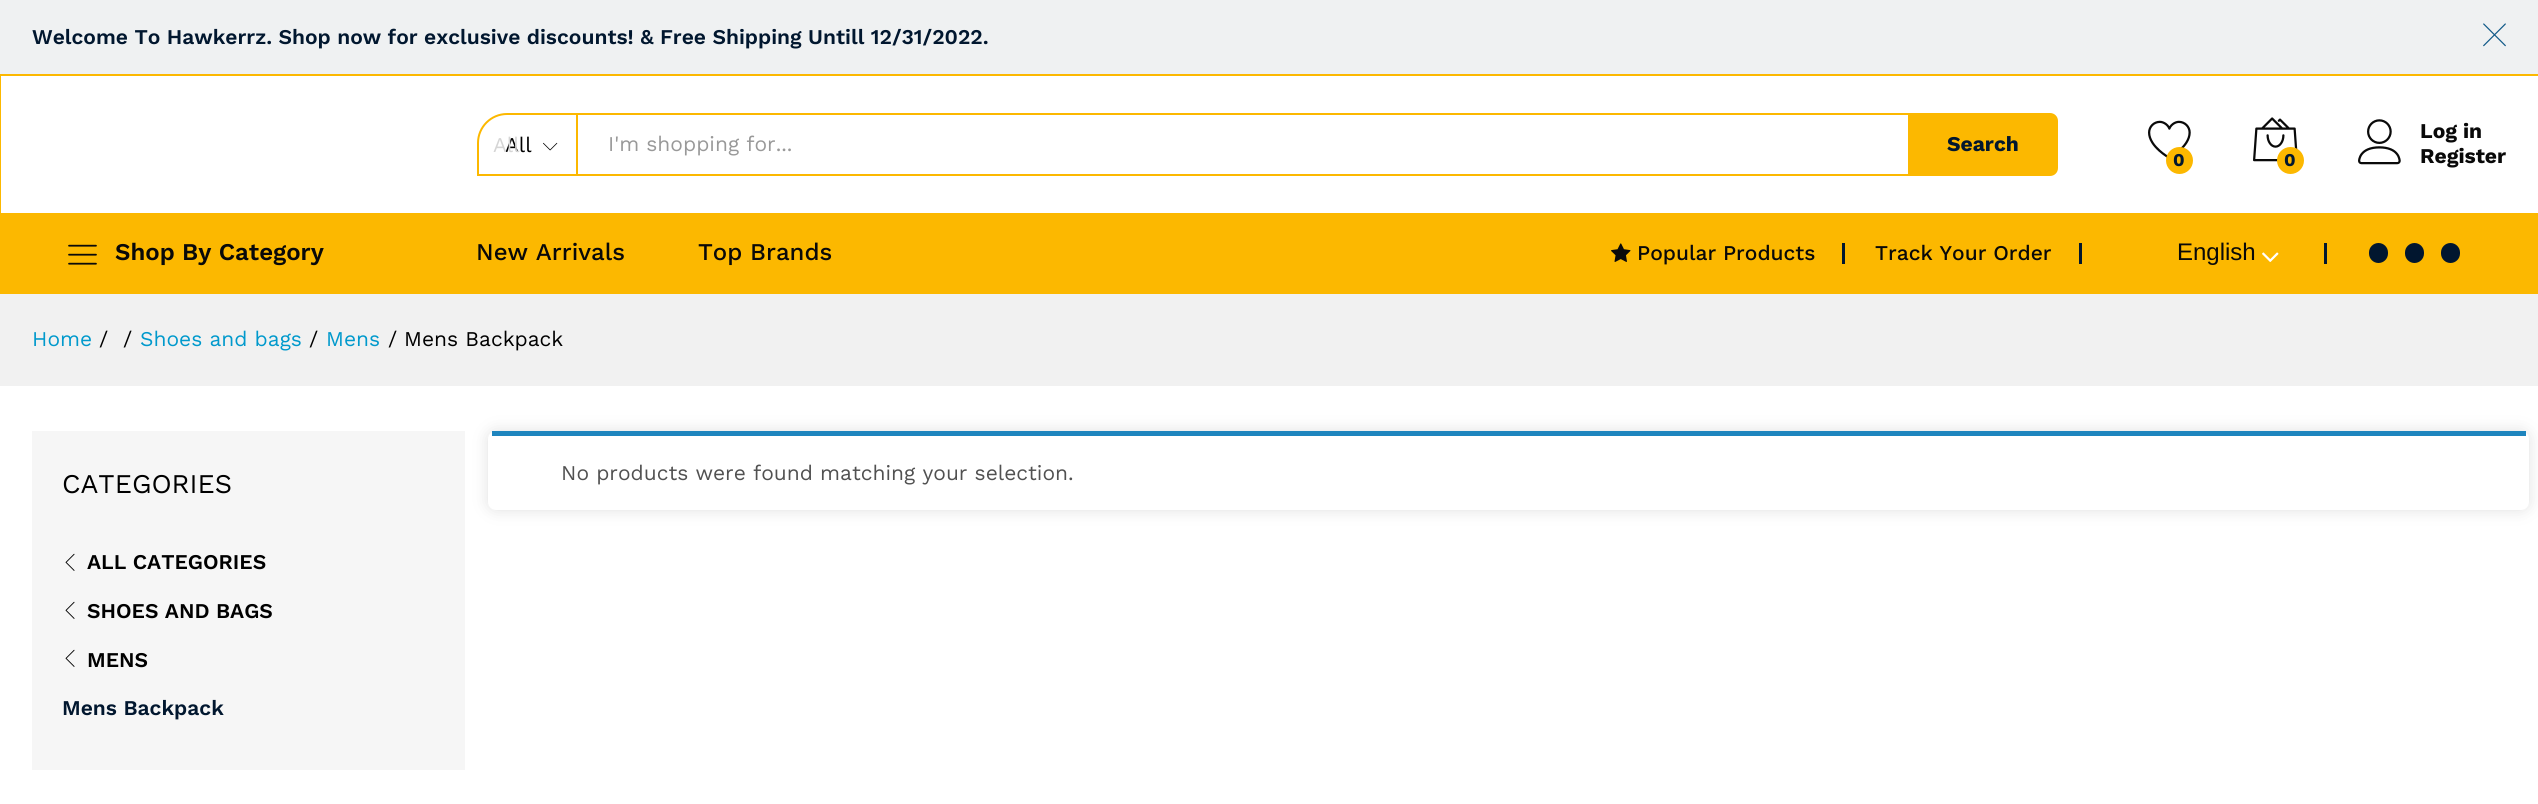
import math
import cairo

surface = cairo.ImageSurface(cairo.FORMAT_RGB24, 2538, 804)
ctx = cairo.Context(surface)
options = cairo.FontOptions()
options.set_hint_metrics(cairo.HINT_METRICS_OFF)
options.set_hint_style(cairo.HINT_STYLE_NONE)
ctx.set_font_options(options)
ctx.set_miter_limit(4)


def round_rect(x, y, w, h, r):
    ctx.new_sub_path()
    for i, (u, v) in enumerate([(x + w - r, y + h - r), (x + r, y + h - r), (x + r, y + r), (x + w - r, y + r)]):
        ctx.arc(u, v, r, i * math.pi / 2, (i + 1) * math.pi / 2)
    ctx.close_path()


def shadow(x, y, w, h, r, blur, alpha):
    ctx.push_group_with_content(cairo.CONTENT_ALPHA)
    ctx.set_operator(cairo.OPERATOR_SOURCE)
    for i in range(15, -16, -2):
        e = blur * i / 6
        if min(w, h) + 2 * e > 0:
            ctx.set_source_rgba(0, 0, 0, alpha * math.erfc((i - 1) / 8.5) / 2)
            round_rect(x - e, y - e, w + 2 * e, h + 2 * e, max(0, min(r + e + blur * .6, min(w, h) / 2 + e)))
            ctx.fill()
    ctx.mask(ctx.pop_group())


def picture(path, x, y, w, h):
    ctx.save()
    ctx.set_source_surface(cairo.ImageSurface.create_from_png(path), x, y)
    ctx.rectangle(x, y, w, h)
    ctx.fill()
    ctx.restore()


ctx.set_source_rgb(1, 1, 1)
ctx.paint()
ctx.set_source_rgb(0.937, 0.945, 0.949)
ctx.rectangle(0, 0, 2538, 74)
ctx.fill()
ctx.select_font_face("Work Sans SemiBold")
ctx.set_font_size(21)
ctx.set_source_rgb(0.004, 0.09, 0.184)
ctx.move_to(32, 44)
ctx.show_text("Welcome To Hawkerrz. Shop now for exclusive discounts! & Free Shipping Untill 12/31/2022.")
picture("img1.png", 2483, 23, 23, 24)
ctx.set_source_rgb(0.988, 0.722, 0)
ctx.rectangle(1, 213, 2537, 79)
ctx.fill()
ctx.rectangle(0, 75, 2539, 218)
ctx.stroke()
ctx.new_path()
ctx.move_to(507, 114)
ctx.line_to(577, 114)
ctx.line_to(577, 175)
ctx.line_to(478, 175)
ctx.line_to(478, 143)
ctx.curve_to(478, 127, 491, 114, 507, 114)
ctx.close_path()
ctx.stroke()
ctx.select_font_face("Work Sans")
ctx.set_source_rgb(0, 0, 0)
ctx.move_to(505, 152)
ctx.show_text("All")
ctx.set_source_rgb(0.835, 0.835, 0.835)
ctx.move_to(493, 152)
ctx.show_text("All")
picture("img2.png", 543, 142, 15, 9)
ctx.set_source_rgb(0.988, 0.722, 0)
ctx.rectangle(578, 113, 1330, 2)
ctx.fill()
ctx.rectangle(578, 174, 1330, 2)
ctx.fill()
ctx.set_source_rgb(0.6, 0.6, 0.6)
ctx.move_to(608, 151)
ctx.show_text("I'm shopping for...")
ctx.set_source_rgb(0.988, 0.722, 0)
ctx.new_path()
ctx.move_to(1908, 113)
ctx.line_to(2050, 113)
ctx.curve_to(2054.5, 113, 2058, 116.5, 2058, 121)
ctx.line_to(2058, 168)
ctx.curve_to(2058, 172.5, 2054.5, 176, 2050, 176)
ctx.line_to(1908, 176)
ctx.close_path()
ctx.fill()
ctx.select_font_face("Work Sans", cairo.FONT_SLANT_NORMAL, cairo.FONT_WEIGHT_BOLD)
ctx.set_source_rgb(0.004, 0.09, 0.184)
ctx.move_to(1947, 151)
ctx.show_text("Search")
picture("img3.png", 2148, 120, 43, 38)
ctx.set_source_rgb(0.988, 0.722, 0)
ctx.arc(2179.5, 160.5, 13.5, 0, 2 * math.pi)
ctx.fill()
ctx.set_font_size(18)
ctx.set_source_rgb(0.004, 0.09, 0.184)
ctx.move_to(2173, 166)
ctx.show_text("0")
picture("img4.png", 2253, 117, 45, 45)
ctx.set_source_rgb(0.988, 0.722, 0)
ctx.arc(2290.5, 160.5, 13.5, 0, 2 * math.pi)
ctx.fill()
ctx.set_source_rgb(0.004, 0.09, 0.184)
ctx.move_to(2284, 166)
ctx.show_text("0")
picture("img5.png", 2358, 119, 43, 46)
ctx.set_font_size(21)
ctx.set_source_rgb(0.039, 0.039, 0.039)
ctx.move_to(2420, 138)
ctx.show_text("Log in")
ctx.move_to(2420, 163)
ctx.show_text("Register")
picture("img6.png", 68, 244, 29, 21)
ctx.select_font_face("Work Sans SemiBold")
ctx.set_font_size(24)
ctx.move_to(115, 260)
ctx.show_text("Shop By Category")
ctx.select_font_face("Work Sans Medium")
ctx.move_to(476, 260)
ctx.show_text("New Arrivals")
ctx.move_to(698, 260)
ctx.show_text("Top Brands")
picture("img7.png", 1611, 243, 20, 19)
ctx.set_font_size(21)
ctx.move_to(1637, 260)
ctx.show_text("Popular Products")
ctx.set_source_rgb(0.004, 0.09, 0.184)
ctx.rectangle(1842, 243, 3, 21)
ctx.fill()
ctx.set_source_rgb(0.039, 0.039, 0.039)
ctx.move_to(1875, 260)
ctx.show_text("Track Your Order")
ctx.set_source_rgb(0.004, 0.09, 0.184)
ctx.rectangle(2079, 243, 3, 21)
ctx.fill()
ctx.select_font_face("Liberation Sans")
ctx.set_font_size(24)
ctx.set_source_rgb(0.039, 0.039, 0.039)
ctx.move_to(2177, 260)
ctx.show_text("English")
picture("img8.png", 2262, 252, 17, 10)
ctx.set_source_rgb(0.004, 0.09, 0.184)
ctx.rectangle(2324, 243, 3, 21)
ctx.fill()
ctx.set_source_rgb(0.004, 0.086, 0.184)
round_rect(2369, 243, 19, 20, 9.5)
ctx.fill()
round_rect(2405, 243, 19, 20, 9.5)
ctx.fill()
round_rect(2441, 243, 19, 20, 9.5)
ctx.fill()
ctx.set_source_rgb(0.945, 0.945, 0.945)
ctx.rectangle(0, 294, 2538, 92)
ctx.fill()
ctx.select_font_face("Work Sans")
ctx.set_font_size(21)
ctx.set_source_rgb(0, 0.6, 0.8)
ctx.move_to(32, 346)
ctx.show_text("Home")
ctx.set_source_rgb(0, 0, 0)
ctx.move_to(99, 346)
ctx.show_text("/")
ctx.move_to(123, 346)
ctx.show_text("/")
ctx.set_source_rgb(0, 0.6, 0.8)
ctx.move_to(140, 346)
ctx.show_text("Shoes and bags")
ctx.set_source_rgb(0, 0, 0)
ctx.move_to(309, 346)
ctx.show_text("/")
ctx.set_source_rgb(0, 0.6, 0.8)
ctx.move_to(326, 346)
ctx.show_text("Mens")
ctx.set_source_rgb(0, 0, 0)
ctx.move_to(388, 346)
ctx.show_text("/")
ctx.move_to(404, 346)
ctx.show_text("Mens Backpack")
ctx.set_source_rgb(0.878, 0.878, 0.878)
shadow(488, 431, 2041, 79, 8, 7.5, 1)
ctx.set_source_rgb(0.961, 0.961, 0.961)
ctx.rectangle(32, 431, 433, 339)
ctx.fill()
ctx.set_font_size(27)
ctx.set_source_rgb(0, 0, 0)
ctx.move_to(62, 493)
ctx.show_text("CATEGORIES")
picture("img9.png", 65, 553, 10, 18)
ctx.select_font_face("Work Sans SemiBold")
ctx.set_font_size(21)
ctx.move_to(87, 569)
ctx.show_text("ALL CATEGORIES")
picture("img9.png", 65, 601, 10, 18)
ctx.move_to(87, 618)
ctx.show_text("SHOES AND BAGS")
picture("img9.png", 65, 649, 10, 18)
ctx.move_to(87, 667)
ctx.show_text("MENS")
ctx.set_source_rgb(0.004, 0.09, 0.184)
ctx.move_to(62, 715)
ctx.show_text("Mens Backpack")
ctx.set_source_rgb(1, 1, 1)
round_rect(488, 431, 2041, 79, 8)
ctx.fill()
ctx.set_source_rgb(0.118, 0.522, 0.745)
ctx.rectangle(492, 431, 2034, 5)
ctx.fill()
ctx.select_font_face("Work Sans")
ctx.set_source_rgb(0.318, 0.318, 0.318)
ctx.move_to(561, 480)
ctx.show_text("No products were found matching your selection.")
surface.write_to_png("page.png")
